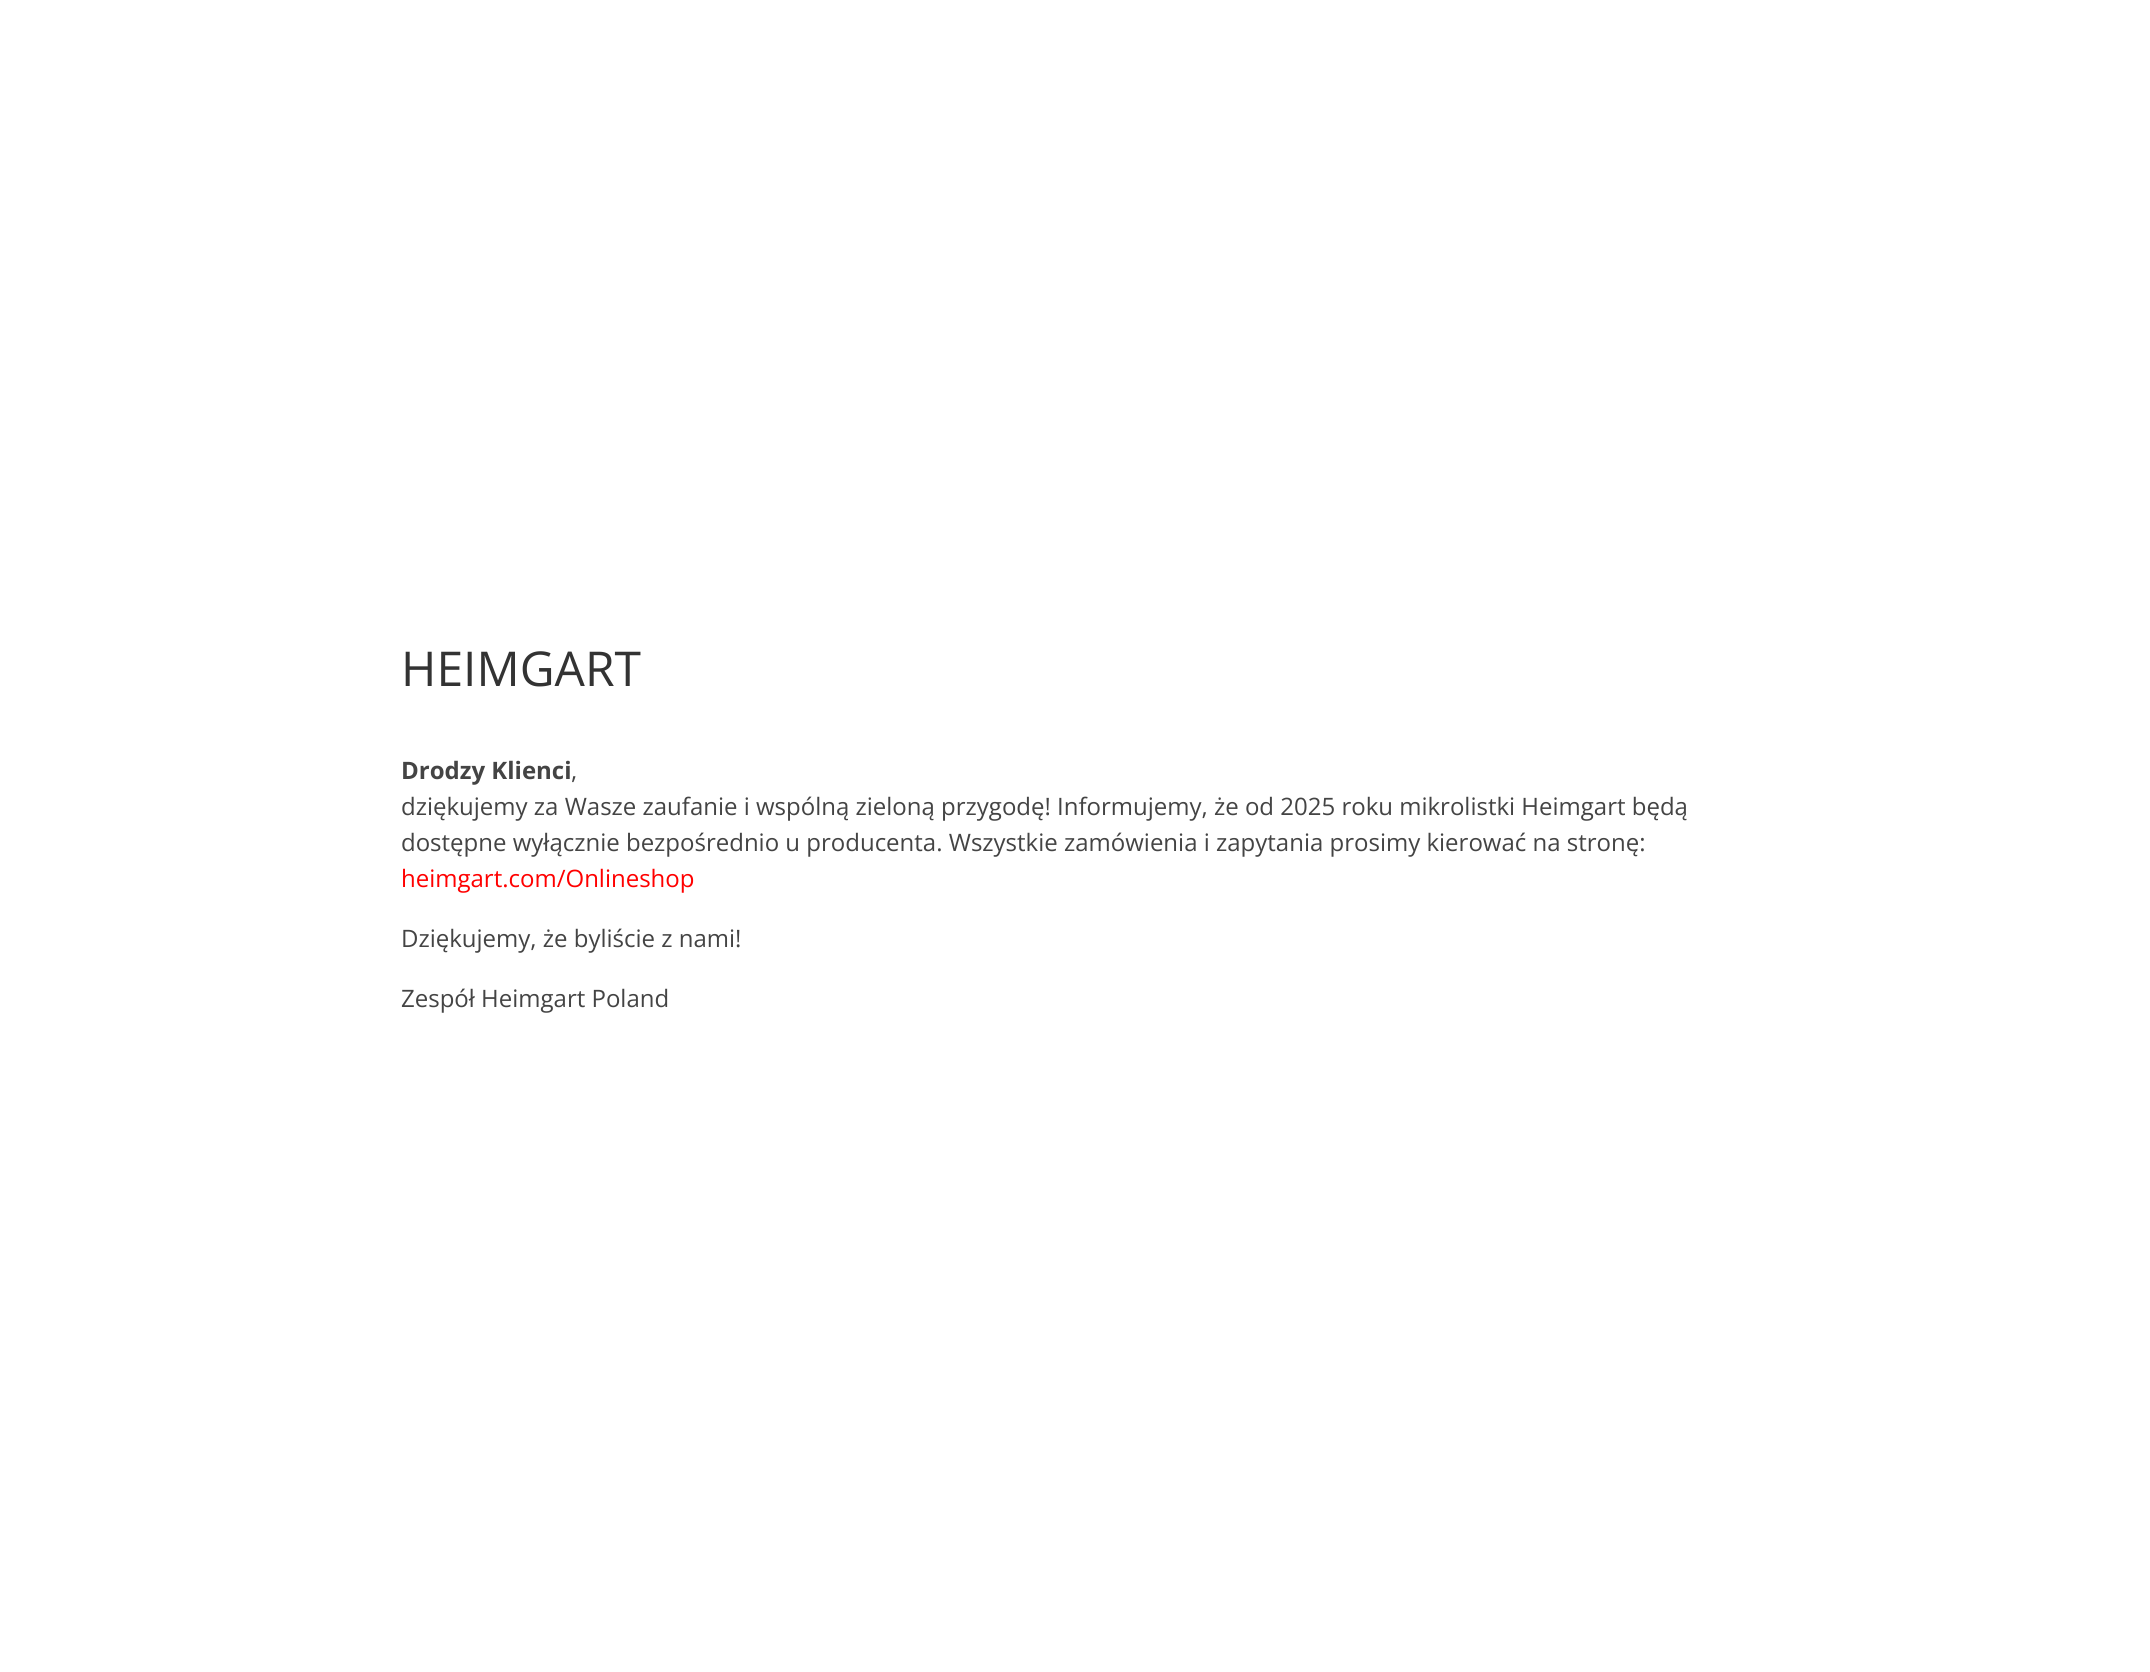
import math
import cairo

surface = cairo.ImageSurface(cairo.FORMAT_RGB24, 2150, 1672)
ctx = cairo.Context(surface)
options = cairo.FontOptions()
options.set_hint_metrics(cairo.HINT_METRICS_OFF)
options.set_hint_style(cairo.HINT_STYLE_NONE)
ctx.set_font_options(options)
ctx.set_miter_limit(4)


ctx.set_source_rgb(1, 1, 1)
ctx.paint()
ctx.select_font_face("Open Sans")
ctx.set_font_size(48)
ctx.set_source_rgb(0.2, 0.2, 0.2)
ctx.move_to(401, 686)
ctx.show_text("HEIMGART")
ctx.select_font_face("Open Sans", cairo.FONT_SLANT_NORMAL, cairo.FONT_WEIGHT_BOLD)
ctx.set_font_size(24)
ctx.set_source_rgb(0.267, 0.267, 0.267)
ctx.move_to(401, 779)
ctx.show_text("Drodzy Klienci")
ctx.select_font_face("Open Sans")
ctx.move_to(571, 779)
ctx.show_text(",")
ctx.move_to(401, 815)
ctx.show_text("dziękujemy za Wasze zaufanie i wspólną zieloną przygodę! Informujemy, że od 2025 roku mikrolistki Heimgart będą")
ctx.move_to(401, 851)
ctx.show_text("dostępne wyłącznie bezpośrednio u producenta. Wszystkie zamówienia i zapytania prosimy kierować na stronę:")
ctx.set_source_rgb(1, 0, 0)
ctx.move_to(401, 887)
ctx.show_text("heimgart.com/Onlineshop")
ctx.set_source_rgb(0.267, 0.267, 0.267)
ctx.move_to(401, 947)
ctx.show_text("Dziękujemy, że byliście z nami!")
ctx.move_to(401, 1007)
ctx.show_text("Zespół Heimgart Poland")
surface.write_to_png("page.png")
